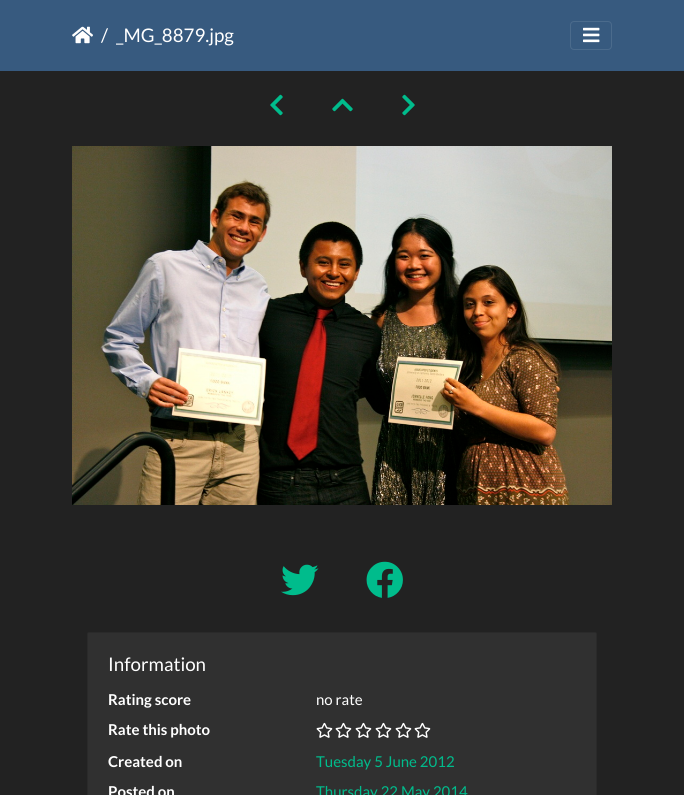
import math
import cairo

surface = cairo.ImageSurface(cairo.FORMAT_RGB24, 684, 795)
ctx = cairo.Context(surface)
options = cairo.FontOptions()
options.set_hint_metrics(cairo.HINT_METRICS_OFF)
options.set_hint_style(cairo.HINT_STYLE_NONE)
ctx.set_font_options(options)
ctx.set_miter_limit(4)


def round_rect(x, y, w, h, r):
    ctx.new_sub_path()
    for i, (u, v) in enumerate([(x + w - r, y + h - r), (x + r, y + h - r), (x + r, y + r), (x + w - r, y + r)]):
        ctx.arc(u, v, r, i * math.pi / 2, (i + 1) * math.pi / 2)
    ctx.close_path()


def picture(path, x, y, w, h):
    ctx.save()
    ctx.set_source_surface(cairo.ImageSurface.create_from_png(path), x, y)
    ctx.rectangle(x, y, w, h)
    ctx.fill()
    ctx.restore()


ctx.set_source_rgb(0.133, 0.133, 0.133)
ctx.paint()
ctx.set_source_rgb(0.216, 0.353, 0.498)
ctx.rectangle(0, 0, 684, 71)
ctx.fill()
picture("img1.png", 72, 26, 21, 18)
ctx.select_font_face("Lato")
ctx.set_font_size(18.75)
ctx.set_source_rgb(1, 1, 1)
ctx.move_to(101, 42)
ctx.show_text("/")
ctx.move_to(116, 42)
ctx.show_text("_MG_8879.jpg")
round_rect(570.5, 21.5, 41, 28, 3.5)
ctx.set_source_rgb(0.294, 0.42, 0.549)
ctx.set_line_width(1)
ctx.stroke()
picture("img2.png", 583, 27, 17, 16)
picture("img3.png", 270, 94, 13, 22)
picture("img4.png", 332, 98, 21, 14)
picture("img5.png", 402, 94, 13, 22)
picture("img6.png", 72, 146, 540, 359)
picture("img7.png", 281, 564, 38, 32)
picture("img8.png", 366, 561, 37, 37)
ctx.set_source_rgb(0.188, 0.188, 0.188)
round_rect(87.5, 632.5, 509, 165, 1.5)
ctx.fill_preserve()
ctx.set_source_rgb(0.165, 0.165, 0.165)
ctx.stroke()
ctx.set_source_rgb(1, 1, 1)
ctx.move_to(108, 671)
ctx.show_text("Information")
ctx.select_font_face("Lato", cairo.FONT_SLANT_NORMAL, cairo.FONT_WEIGHT_BOLD)
ctx.set_font_size(15)
ctx.move_to(108, 705)
ctx.show_text("Rating score")
ctx.select_font_face("Lato")
ctx.move_to(316, 705)
ctx.show_text("no rate")
ctx.select_font_face("Lato", cairo.FONT_SLANT_NORMAL, cairo.FONT_WEIGHT_BOLD)
ctx.move_to(108, 735)
ctx.show_text("Rate this photo")
picture("img9.png", 316, 722, 17, 16)
picture("img9.png", 335, 722, 17, 16)
picture("img9.png", 355, 722, 17, 16)
picture("img9.png", 375, 722, 17, 16)
picture("img9.png", 395, 722, 17, 16)
picture("img9.png", 414, 722, 17, 16)
ctx.move_to(108, 767)
ctx.show_text("Created on")
ctx.select_font_face("Lato")
ctx.set_source_rgb(0, 0.737, 0.549)
ctx.move_to(316, 767)
ctx.show_text("Tuesday 5 June 2012")
ctx.select_font_face("Lato", cairo.FONT_SLANT_NORMAL, cairo.FONT_WEIGHT_BOLD)
ctx.set_source_rgb(1, 1, 1)
ctx.move_to(108, 797)
ctx.show_text("Posted on")
ctx.select_font_face("Lato")
ctx.set_source_rgb(0, 0.737, 0.549)
ctx.move_to(316, 797)
ctx.show_text("Thursday 22 May 2014")
surface.write_to_png("page.png")
